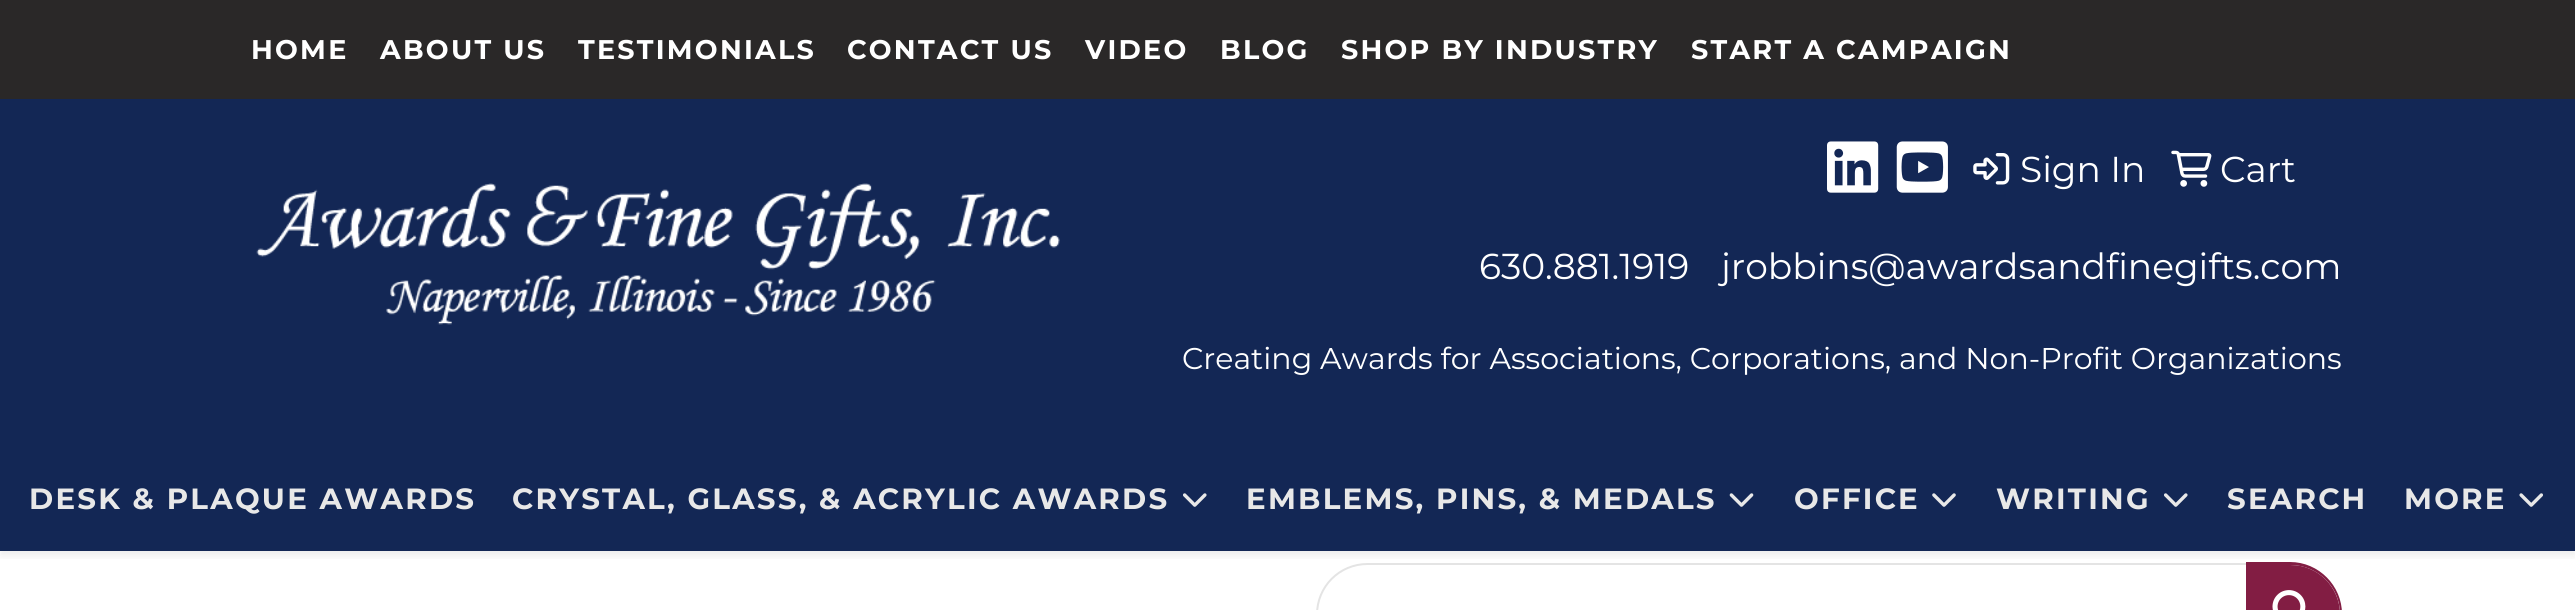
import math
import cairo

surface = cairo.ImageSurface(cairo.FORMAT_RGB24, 2575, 610)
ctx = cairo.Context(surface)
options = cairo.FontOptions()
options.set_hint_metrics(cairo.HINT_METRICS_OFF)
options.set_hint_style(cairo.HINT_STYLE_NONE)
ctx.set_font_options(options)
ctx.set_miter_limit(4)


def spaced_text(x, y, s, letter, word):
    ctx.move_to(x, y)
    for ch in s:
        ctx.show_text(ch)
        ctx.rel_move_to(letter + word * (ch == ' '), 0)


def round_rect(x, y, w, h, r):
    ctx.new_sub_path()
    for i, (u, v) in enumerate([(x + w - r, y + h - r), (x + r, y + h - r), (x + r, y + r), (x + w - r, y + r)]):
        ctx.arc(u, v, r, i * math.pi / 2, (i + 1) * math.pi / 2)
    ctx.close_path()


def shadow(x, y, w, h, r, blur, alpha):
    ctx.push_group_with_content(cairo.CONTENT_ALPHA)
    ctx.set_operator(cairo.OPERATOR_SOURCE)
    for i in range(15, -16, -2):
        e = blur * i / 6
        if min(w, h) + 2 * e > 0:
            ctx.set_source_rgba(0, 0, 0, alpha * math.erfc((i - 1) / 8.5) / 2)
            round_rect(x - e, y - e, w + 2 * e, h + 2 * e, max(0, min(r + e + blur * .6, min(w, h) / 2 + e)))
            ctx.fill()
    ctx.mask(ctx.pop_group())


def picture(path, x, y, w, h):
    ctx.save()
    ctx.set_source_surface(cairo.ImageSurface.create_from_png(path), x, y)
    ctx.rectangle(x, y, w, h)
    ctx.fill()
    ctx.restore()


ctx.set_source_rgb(0.075, 0.153, 0.333)
ctx.paint()
ctx.set_source_rgb(0.165, 0.157, 0.157)
ctx.rectangle(0, 0, 2575, 99)
ctx.fill()
ctx.select_font_face("Montserrat", cairo.FONT_SLANT_NORMAL, cairo.FONT_WEIGHT_BOLD)
ctx.set_font_size(27)
ctx.set_source_rgb(1, 1, 1)
spaced_text(251, 59, "HOME", 2.25, 0)
spaced_text(380, 59, "ABOUT US", 2.25, 0)
spaced_text(578, 59, "TESTIMONIALS", 2.25, 0)
spaced_text(847, 59, "CONTACT US", 2.25, 0)
spaced_text(1085, 59, "VIDEO", 2.25, 0)
spaced_text(1220, 59, "BLOG", 2.25, 0)
spaced_text(1341, 59, "SHOP BY INDUSTRY", 2.25, 0)
spaced_text(1691, 59, "START A CAMPAIGN", 2.25, 0)
picture("img1.png", 256, 183, 804, 142)
picture("img2.png", 1827, 141, 52, 52)
picture("img3.png", 1896, 141, 52, 52)
picture("img4.png", 1973, 153, 37, 32)
ctx.select_font_face("Montserrat Thin")
ctx.set_font_size(36)
ctx.move_to(2020, 182)
ctx.show_text("Sign In")
picture("img5.png", 2171, 150, 41, 37)
ctx.move_to(2220, 182)
ctx.show_text("Cart")
ctx.move_to(1479, 279)
ctx.show_text("630.881.1919")
ctx.move_to(1721, 279)
ctx.show_text("jrobbins@awardsandfinegifts.com")
ctx.set_font_size(30)
ctx.move_to(1182, 369)
ctx.show_text("Creating Awards for Associations, Corporations, and Non-Profit Organizations")
ctx.rectangle(0, 551, 2575, 59)
ctx.fill()
ctx.save()
ctx.rectangle(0, 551, 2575, 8)
ctx.clip()
ctx.set_source_rgb(0, 0, 0)
shadow(0, 448, 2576, 108, 0, 4.5, 0.07)
ctx.restore()
ctx.select_font_face("Montserrat", cairo.FONT_SLANT_NORMAL, cairo.FONT_WEIGHT_BOLD)
ctx.set_font_size(29.25)
ctx.set_source_rgb(0.91, 0.91, 0.91)
spaced_text(29, 509, "DESK & PLAQUE AWARDS", 2.25, 0)
spaced_text(512, 509, "CRYSTAL, GLASS, & ACRYLIC AWARDS", 2.25, 0)
picture("img6.png", 1183, 493, 24, 14)
spaced_text(1246, 509, "EMBLEMS, PINS, & MEDALS", 2.25, 0)
picture("img7.png", 1729, 493, 25, 14)
spaced_text(1794, 509, "OFFICE", 2.25, 0)
picture("img8.png", 1932, 493, 24, 14)
spaced_text(1996, 509, "WRITING", 2.25, 0)
picture("img6.png", 2164, 493, 24, 14)
spaced_text(2227, 509, "SEARCH", 2.25, 0)
spaced_text(2404, 509, "MORE", 2.25, 0)
picture("img9.png", 2519, 493, 24, 14)
ctx.new_path()
ctx.move_to(1367.5, 564)
ctx.line_to(2247, 564)
ctx.line_to(2247, 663)
ctx.line_to(1367.5, 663)
ctx.curve_to(1339.5, 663, 1317, 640.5, 1317, 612.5)
ctx.line_to(1317, 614.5)
ctx.curve_to(1317, 586.5, 1339.5, 564, 1367.5, 564)
ctx.close_path()
ctx.set_source_rgb(0.894, 0.894, 0.894)
ctx.stroke()
ctx.set_source_rgb(0.51, 0.114, 0.263)
ctx.new_path()
ctx.move_to(2246, 565)
ctx.line_to(2290.5, 565)
ctx.curve_to(2318, 565, 2340, 587, 2340, 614.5)
ctx.line_to(2340, 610.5)
ctx.curve_to(2340, 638, 2318, 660, 2290.5, 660)
ctx.line_to(2246, 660)
ctx.close_path()
ctx.fill()
ctx.set_fill_rule(cairo.FILL_RULE_EVEN_ODD)
ctx.new_path()
ctx.move_to(2246, 562)
ctx.line_to(2290, 562)
ctx.curve_to(2319, 562, 2342, 586, 2342, 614)
ctx.curve_to(2342, 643, 2319, 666, 2290, 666)
ctx.line_to(2246, 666)
ctx.close_path()
ctx.move_to(2246, 565)
ctx.line_to(2290, 565)
ctx.curve_to(2318, 565, 2340, 587, 2340, 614)
ctx.curve_to(2340, 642, 2318, 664, 2290, 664)
ctx.line_to(2246, 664)
ctx.close_path()
ctx.fill()
picture("img10.png", 2272, 590, 34, 20)
surface.write_to_png("page.png")
